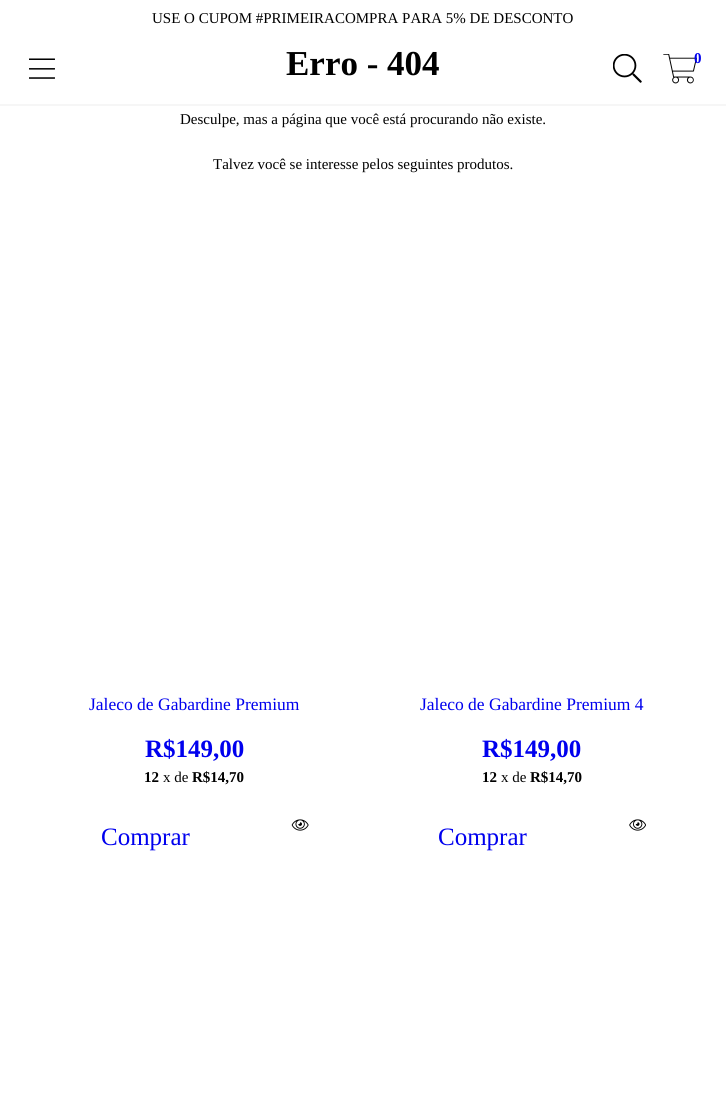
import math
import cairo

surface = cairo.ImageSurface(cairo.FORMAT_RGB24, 726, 1113)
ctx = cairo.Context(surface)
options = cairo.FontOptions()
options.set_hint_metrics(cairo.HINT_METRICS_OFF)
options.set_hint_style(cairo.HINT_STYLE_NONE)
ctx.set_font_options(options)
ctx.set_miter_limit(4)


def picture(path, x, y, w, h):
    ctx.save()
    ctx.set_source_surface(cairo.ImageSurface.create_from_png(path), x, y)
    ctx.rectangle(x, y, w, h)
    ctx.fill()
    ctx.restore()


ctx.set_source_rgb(1, 1, 1)
ctx.paint()
ctx.select_font_face("Liberation Serif")
ctx.set_font_size(15)
ctx.set_source_rgb(0, 0, 0)
ctx.move_to(152, 23)
ctx.show_text("USE O CUPOM #PRIMEIRACOMPRA PARA 5% DE DESCONTO")
picture("img1.png", 29, 58, 26, 21)
picture("img2.png", 613, 54, 29, 29)
picture("img3.png", 663, 54, 34, 30)
ctx.select_font_face("Liberation Serif", cairo.FONT_SLANT_NORMAL, cairo.FONT_WEIGHT_BOLD)
ctx.set_source_rgb(0, 0, 0.933)
ctx.move_to(694, 63)
ctx.show_text("0")
ctx.set_source_rgb(0.961, 0.961, 0.961)
ctx.rectangle(0, 104, 726, 2)
ctx.fill()
ctx.set_font_size(35)
ctx.set_source_rgb(0, 0, 0)
ctx.move_to(286, 75)
ctx.show_text("Erro - 404")
ctx.select_font_face("Liberation Serif")
ctx.set_font_size(15)
ctx.move_to(180, 124)
ctx.show_text("Desculpe, mas a página que você está procurando não existe.")
ctx.move_to(213, 169)
ctx.show_text("Talvez você se interesse pelos seguintes produtos.")
ctx.set_font_size(17.5)
ctx.set_source_rgb(0, 0, 0.933)
ctx.move_to(89, 710)
ctx.show_text("Jaleco de Gabardine Premium")
ctx.select_font_face("Liberation Serif", cairo.FONT_SLANT_NORMAL, cairo.FONT_WEIGHT_BOLD)
ctx.set_font_size(25)
ctx.move_to(145, 757)
ctx.show_text("R$149,00")
ctx.set_font_size(15)
ctx.set_source_rgb(0, 0, 0)
ctx.move_to(144, 782)
ctx.show_text("12")
ctx.select_font_face("Liberation Serif")
ctx.move_to(163, 782)
ctx.show_text("x de")
ctx.select_font_face("Liberation Serif", cairo.FONT_SLANT_NORMAL, cairo.FONT_WEIGHT_BOLD)
ctx.move_to(192, 782)
ctx.show_text("R$14,70")
picture("img4.png", 291, 819, 18, 12)
ctx.select_font_face("Liberation Serif")
ctx.set_font_size(25)
ctx.set_source_rgb(0, 0, 0.933)
ctx.move_to(101, 845)
ctx.show_text("Comprar")
ctx.set_font_size(17.5)
ctx.move_to(420, 710)
ctx.show_text("Jaleco de Gabardine Premium 4")
ctx.select_font_face("Liberation Serif", cairo.FONT_SLANT_NORMAL, cairo.FONT_WEIGHT_BOLD)
ctx.set_font_size(25)
ctx.move_to(482, 757)
ctx.show_text("R$149,00")
ctx.set_font_size(15)
ctx.set_source_rgb(0, 0, 0)
ctx.move_to(482, 782)
ctx.show_text("12")
ctx.select_font_face("Liberation Serif")
ctx.move_to(501, 782)
ctx.show_text("x de")
ctx.select_font_face("Liberation Serif", cairo.FONT_SLANT_NORMAL, cairo.FONT_WEIGHT_BOLD)
ctx.move_to(530, 782)
ctx.show_text("R$14,70")
picture("img5.png", 629, 819, 17, 12)
ctx.select_font_face("Liberation Serif")
ctx.set_font_size(25)
ctx.set_source_rgb(0, 0, 0.933)
ctx.move_to(438, 845)
ctx.show_text("Comprar")
surface.write_to_png("page.png")
